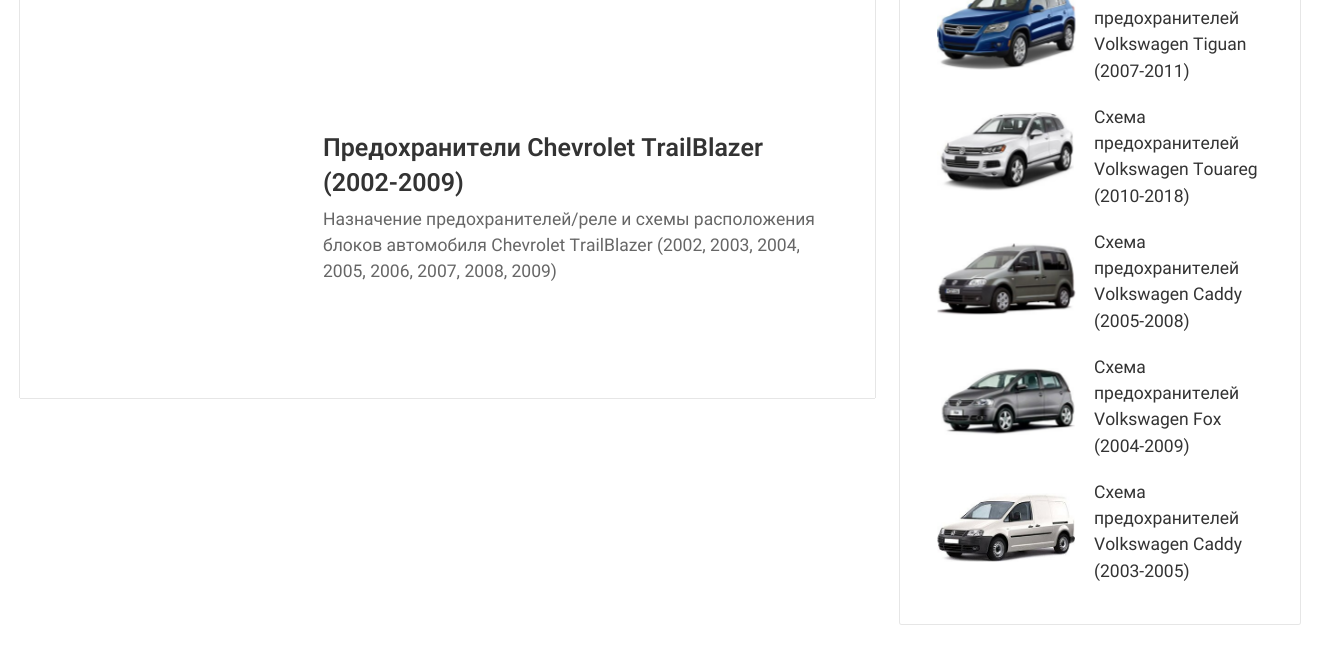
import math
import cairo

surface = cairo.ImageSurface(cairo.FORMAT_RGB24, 1320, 662)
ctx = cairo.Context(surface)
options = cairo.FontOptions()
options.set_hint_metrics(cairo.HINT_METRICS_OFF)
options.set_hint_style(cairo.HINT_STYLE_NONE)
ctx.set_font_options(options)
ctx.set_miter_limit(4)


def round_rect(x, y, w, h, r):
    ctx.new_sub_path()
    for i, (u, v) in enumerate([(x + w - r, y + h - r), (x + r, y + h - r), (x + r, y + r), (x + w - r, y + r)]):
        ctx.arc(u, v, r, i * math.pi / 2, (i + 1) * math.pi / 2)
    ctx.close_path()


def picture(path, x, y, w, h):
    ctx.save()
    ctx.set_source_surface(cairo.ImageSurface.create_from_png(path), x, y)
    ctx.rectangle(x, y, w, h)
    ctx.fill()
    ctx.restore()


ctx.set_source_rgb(1, 1, 1)
ctx.paint()
ctx.set_source_rgb(0.902, 0.902, 0.902)
ctx.rectangle(875, 0, 1, 398)
ctx.fill()
ctx.rectangle(20, 398, 855, 1)
ctx.fill()
ctx.rectangle(19, 0, 1, 398)
ctx.fill()
ctx.select_font_face("Roboto SemiBold")
ctx.set_font_size(25)
ctx.set_source_rgb(0.2, 0.2, 0.2)
ctx.move_to(323, 156)
ctx.show_text("Предохранители Chevrolet TrailBlazer")
ctx.move_to(323, 191)
ctx.show_text("(2002-2009)")
ctx.select_font_face("Roboto")
ctx.set_font_size(17.5)
ctx.set_source_rgb(0.4, 0.4, 0.4)
ctx.move_to(323, 225)
ctx.show_text("Назначение предохранителей/реле и схемы расположения")
ctx.move_to(323, 251)
ctx.show_text("блоков автомобиля Chevrolet TrailBlazer (2002, 2003, 2004,")
ctx.move_to(323, 277)
ctx.show_text("2005, 2006, 2007, 2008, 2009)")
round_rect(899.5, -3.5, 401, 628, 2)
ctx.set_source_rgb(0.902, 0.902, 0.902)
ctx.set_line_width(1)
ctx.stroke()
picture("img1.png", 937, 0, 139, 70)
ctx.set_source_rgb(0.2, 0.2, 0.2)
ctx.move_to(1094, 24)
ctx.show_text("предохранителей")
ctx.move_to(1094, 50)
ctx.show_text("Volkswagen Tiguan")
ctx.move_to(1094, 77)
ctx.show_text("(2007-2011)")
picture("img2.png", 937, 112, 137, 79)
ctx.move_to(1094, 123)
ctx.show_text("Схема")
ctx.move_to(1094, 149)
ctx.show_text("предохранителей")
ctx.move_to(1094, 175)
ctx.show_text("Volkswagen Touareg")
ctx.move_to(1094, 202)
ctx.show_text("(2010-2018)")
picture("img3.png", 937, 243, 139, 72)
ctx.move_to(1094, 248)
ctx.show_text("Схема")
ctx.move_to(1094, 274)
ctx.show_text("предохранителей")
ctx.move_to(1094, 300)
ctx.show_text("Volkswagen Caddy")
ctx.move_to(1094, 327)
ctx.show_text("(2005-2008)")
picture("img4.png", 941, 368, 134, 67)
ctx.move_to(1094, 373)
ctx.show_text("Схема")
ctx.move_to(1094, 399)
ctx.show_text("предохранителей")
ctx.move_to(1094, 425)
ctx.show_text("Volkswagen Fox")
ctx.move_to(1094, 452)
ctx.show_text("(2004-2009)")
picture("img5.png", 937, 493, 138, 69)
ctx.move_to(1094, 498)
ctx.show_text("Схема")
ctx.move_to(1094, 524)
ctx.show_text("предохранителей")
ctx.move_to(1094, 550)
ctx.show_text("Volkswagen Caddy")
ctx.move_to(1094, 577)
ctx.show_text("(2003-2005)")
surface.write_to_png("page.png")
